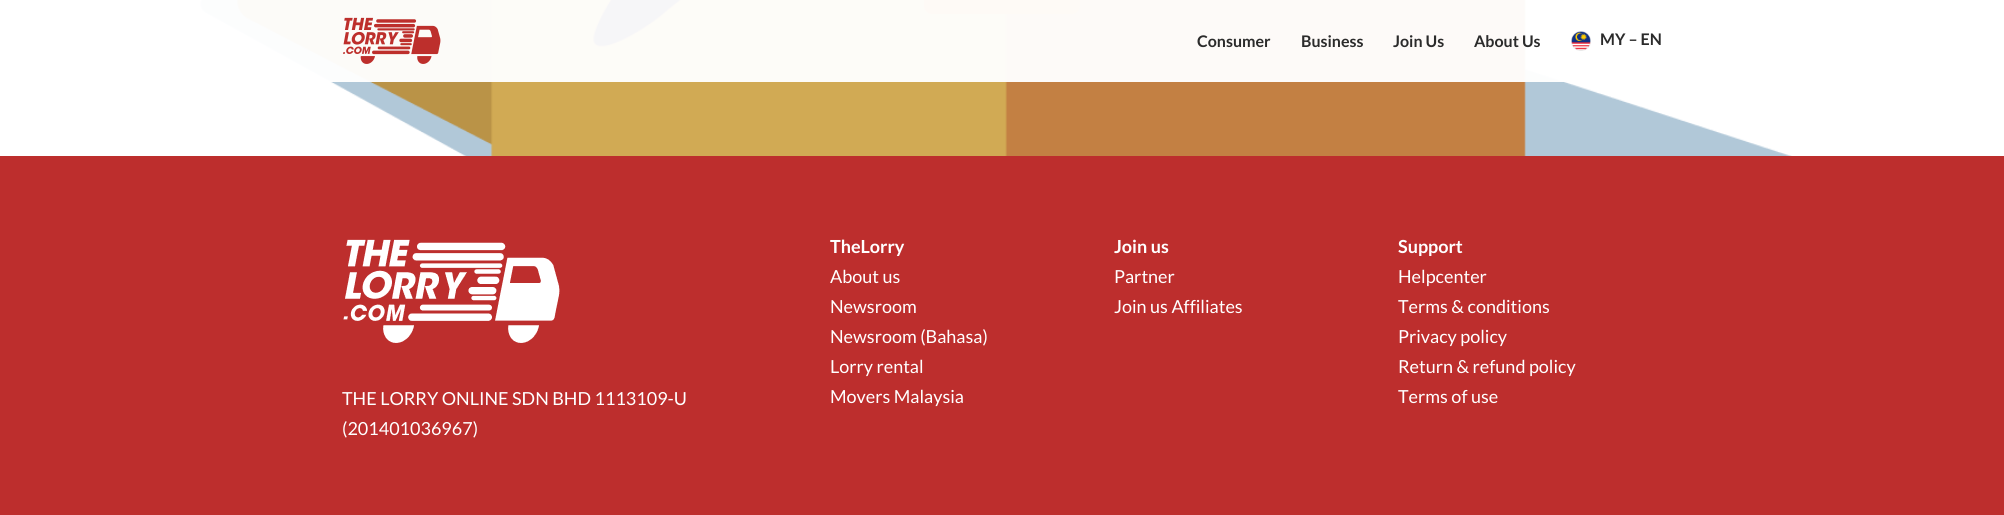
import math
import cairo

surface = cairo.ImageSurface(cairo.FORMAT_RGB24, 2004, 515)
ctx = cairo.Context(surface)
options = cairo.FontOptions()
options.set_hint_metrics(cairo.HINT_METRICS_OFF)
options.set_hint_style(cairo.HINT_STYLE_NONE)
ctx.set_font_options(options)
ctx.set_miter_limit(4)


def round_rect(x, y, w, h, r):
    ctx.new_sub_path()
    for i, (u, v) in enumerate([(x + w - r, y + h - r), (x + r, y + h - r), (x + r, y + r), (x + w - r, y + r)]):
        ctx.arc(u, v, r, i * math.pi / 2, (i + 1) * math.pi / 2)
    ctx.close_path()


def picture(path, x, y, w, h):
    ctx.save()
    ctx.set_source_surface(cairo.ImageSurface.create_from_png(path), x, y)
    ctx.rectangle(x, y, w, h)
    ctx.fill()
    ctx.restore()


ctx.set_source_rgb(1, 1, 1)
ctx.paint()
picture("img3.png", 200, 0, 1592, 156)
ctx.set_source_rgb(0.902, 0.522, 0.137)
round_rect(924, -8, 156, 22, 8)
ctx.fill()
ctx.set_source_rgba(1, 1, 1, 0.96)
ctx.rectangle(200, 0, 1366, 82)
ctx.fill()
picture("img1.png", 343, 17, 98, 47)
ctx.select_font_face("Lato", cairo.FONT_SLANT_NORMAL, cairo.FONT_WEIGHT_BOLD)
ctx.set_font_size(16)
ctx.set_source_rgb(0.169, 0.169, 0.169)
ctx.move_to(1197, 47)
ctx.show_text("Consumer")
ctx.move_to(1301, 47)
ctx.show_text("Business")
ctx.move_to(1393, 47)
ctx.show_text("Join Us")
ctx.move_to(1474, 47)
ctx.show_text("About Us")
picture("img2.png", 1571, 31, 20, 20)
ctx.move_to(1600, 45)
ctx.show_text("MY – EN")
ctx.set_source_rgb(0.741, 0.18, 0.176)
ctx.rectangle(0, 156, 2004, 359)
ctx.fill()
ctx.set_font_size(18)
ctx.set_source_rgb(1, 1, 1)
ctx.move_to(830, 253)
ctx.show_text("TheLorry")
ctx.select_font_face("Lato")
ctx.move_to(830, 283)
ctx.show_text("About us")
ctx.move_to(830, 313)
ctx.show_text("Newsroom")
ctx.move_to(830, 343)
ctx.show_text("Newsroom (Bahasa)")
ctx.move_to(830, 373)
ctx.show_text("Lorry rental")
ctx.move_to(830, 403)
ctx.show_text("Movers Malaysia")
ctx.select_font_face("Lato", cairo.FONT_SLANT_NORMAL, cairo.FONT_WEIGHT_BOLD)
ctx.move_to(1114, 253)
ctx.show_text("Join us")
ctx.select_font_face("Lato")
ctx.move_to(1114, 283)
ctx.show_text("Partner")
ctx.move_to(1114, 313)
ctx.show_text("Join us Affiliates")
ctx.select_font_face("Lato", cairo.FONT_SLANT_NORMAL, cairo.FONT_WEIGHT_BOLD)
ctx.move_to(1398, 253)
ctx.show_text("Support")
ctx.select_font_face("Lato")
ctx.move_to(1398, 283)
ctx.show_text("Helpcenter")
ctx.move_to(1398, 313)
ctx.show_text("Terms & conditions")
ctx.move_to(1398, 343)
ctx.show_text("Privacy policy")
ctx.move_to(1398, 373)
ctx.show_text("Return & refund policy")
ctx.move_to(1398, 403)
ctx.show_text("Terms of use")
picture("img4.png", 343, 239, 217, 104)
ctx.move_to(342, 405)
ctx.show_text("THE LORRY ONLINE SDN BHD 1113109-U")
ctx.move_to(342, 435)
ctx.show_text("(201401036967)")
surface.write_to_png("page.png")
